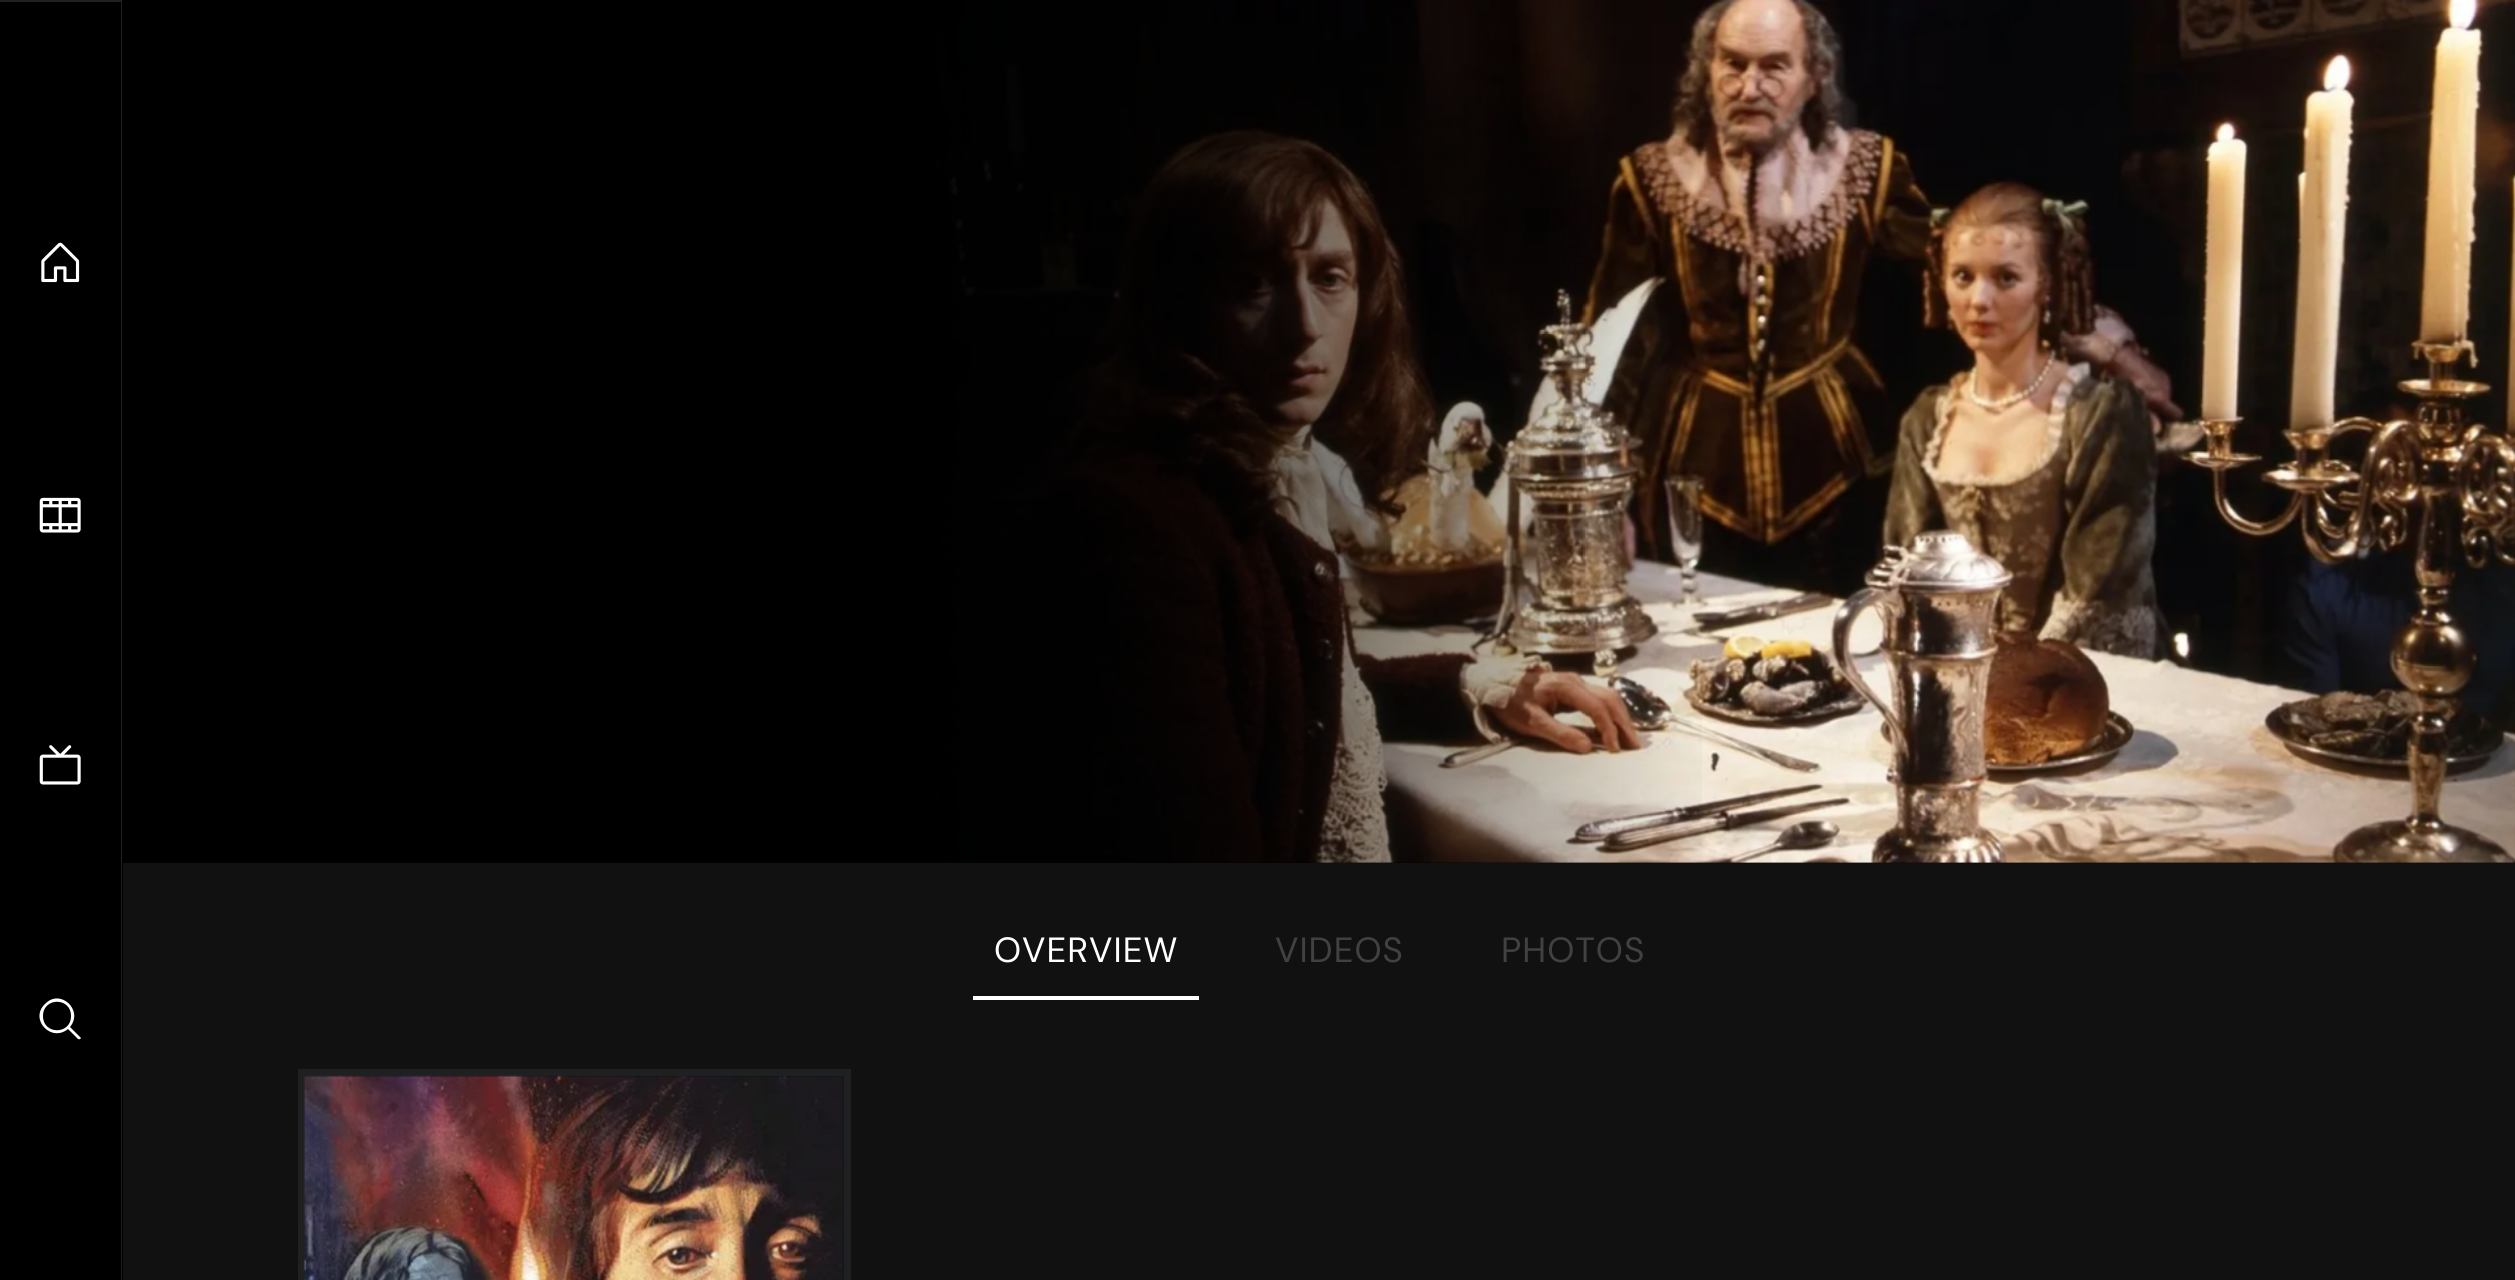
import math
import cairo

surface = cairo.ImageSurface(cairo.FORMAT_RGB24, 2515, 1280)
ctx = cairo.Context(surface)
options = cairo.FontOptions()
options.set_hint_metrics(cairo.HINT_METRICS_OFF)
options.set_hint_style(cairo.HINT_STYLE_NONE)
ctx.set_font_options(options)
ctx.set_miter_limit(4)


def spaced_text(x, y, s, letter, word):
    ctx.move_to(x, y)
    for ch in s:
        ctx.show_text(ch)
        ctx.rel_move_to(letter + word * (ch == ' '), 0)


def picture(path, x, y, w, h):
    ctx.save()
    ctx.set_source_surface(cairo.ImageSurface.create_from_png(path), x, y)
    ctx.rectangle(x, y, w, h)
    ctx.fill()
    ctx.restore()


ctx.set_source_rgb(0.067, 0.067, 0.067)
ctx.paint()
ctx.set_source_rgb(0, 0, 0)
ctx.rectangle(0, 0, 123, 1280)
ctx.fill()
ctx.set_source_rgb(0.122, 0.129, 0.137)
ctx.new_path()
ctx.move_to(0, 0)
ctx.line_to(122, 0)
ctx.line_to(121, 2)
ctx.line_to(0, 2)
ctx.close_path()
ctx.fill()
ctx.set_source_rgba(0.612, 0.639, 0.686, 0.2)
ctx.new_path()
ctx.move_to(122, 0)
ctx.line_to(122, 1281)
ctx.line_to(121, 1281)
ctx.line_to(121, 2)
ctx.close_path()
ctx.fill()
picture("img1.png", 41, 242, 39, 41)
picture("img2.png", 39, 497, 42, 36)
picture("img3.png", 39, 745, 42, 40)
ctx.set_source_rgb(1, 1, 1)
ctx.new_path()
ctx.move_to(80, 1037)
ctx.line_to(70, 1027)
ctx.curve_to(84, 1010, 60, 988, 45, 1004)
ctx.curve_to(29, 1019, 51, 1043, 68, 1029)
ctx.line_to(78, 1039)
ctx.curve_to(80, 1040, 82, 1038, 80, 1037)
ctx.move_to(43, 1016)
ctx.curve_to(43, 997, 71, 997, 71, 1016)
ctx.curve_to(71, 1035, 43, 1035, 43, 1016)
ctx.fill()
ctx.set_source_rgb(0, 0, 0)
ctx.rectangle(926, 862, 1589, 1)
ctx.fill()
picture("img4.png", 926, 0, 1589, 863)
gradient = cairo.LinearGradient(123, 431, 1719, 431)
gradient.add_color_stop_rgba(0, 0, 0, 0, 1)
gradient.add_color_stop_rgba(0.5, 0, 0, 0, 1)
gradient.add_color_stop_rgba(1, 0, 0, 0, 0)
ctx.set_source(gradient)
ctx.rectangle(123, 0, 1579, 863)
ctx.fill()
ctx.set_source_rgb(1, 1, 1)
ctx.rectangle(973, 996, 226, 4)
ctx.fill()
ctx.select_font_face("DM Sans")
ctx.set_font_size(35)
spaced_text(994, 962, "OVERVIEW", 1, 0)
ctx.set_source_rgb(0.255, 0.255, 0.255)
spaced_text(1275, 962, "VIDEOS", 1, 0)
spaced_text(1501, 962, "PHOTOS", 1, 0)
ctx.rectangle(301.5, 1072.5, 546, 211)
ctx.set_source_rgb(0.122, 0.125, 0.129)
ctx.set_line_width(7)
ctx.stroke()
picture("img5.png", 303, 1075, 541, 205)
surface.write_to_png("page.png")
